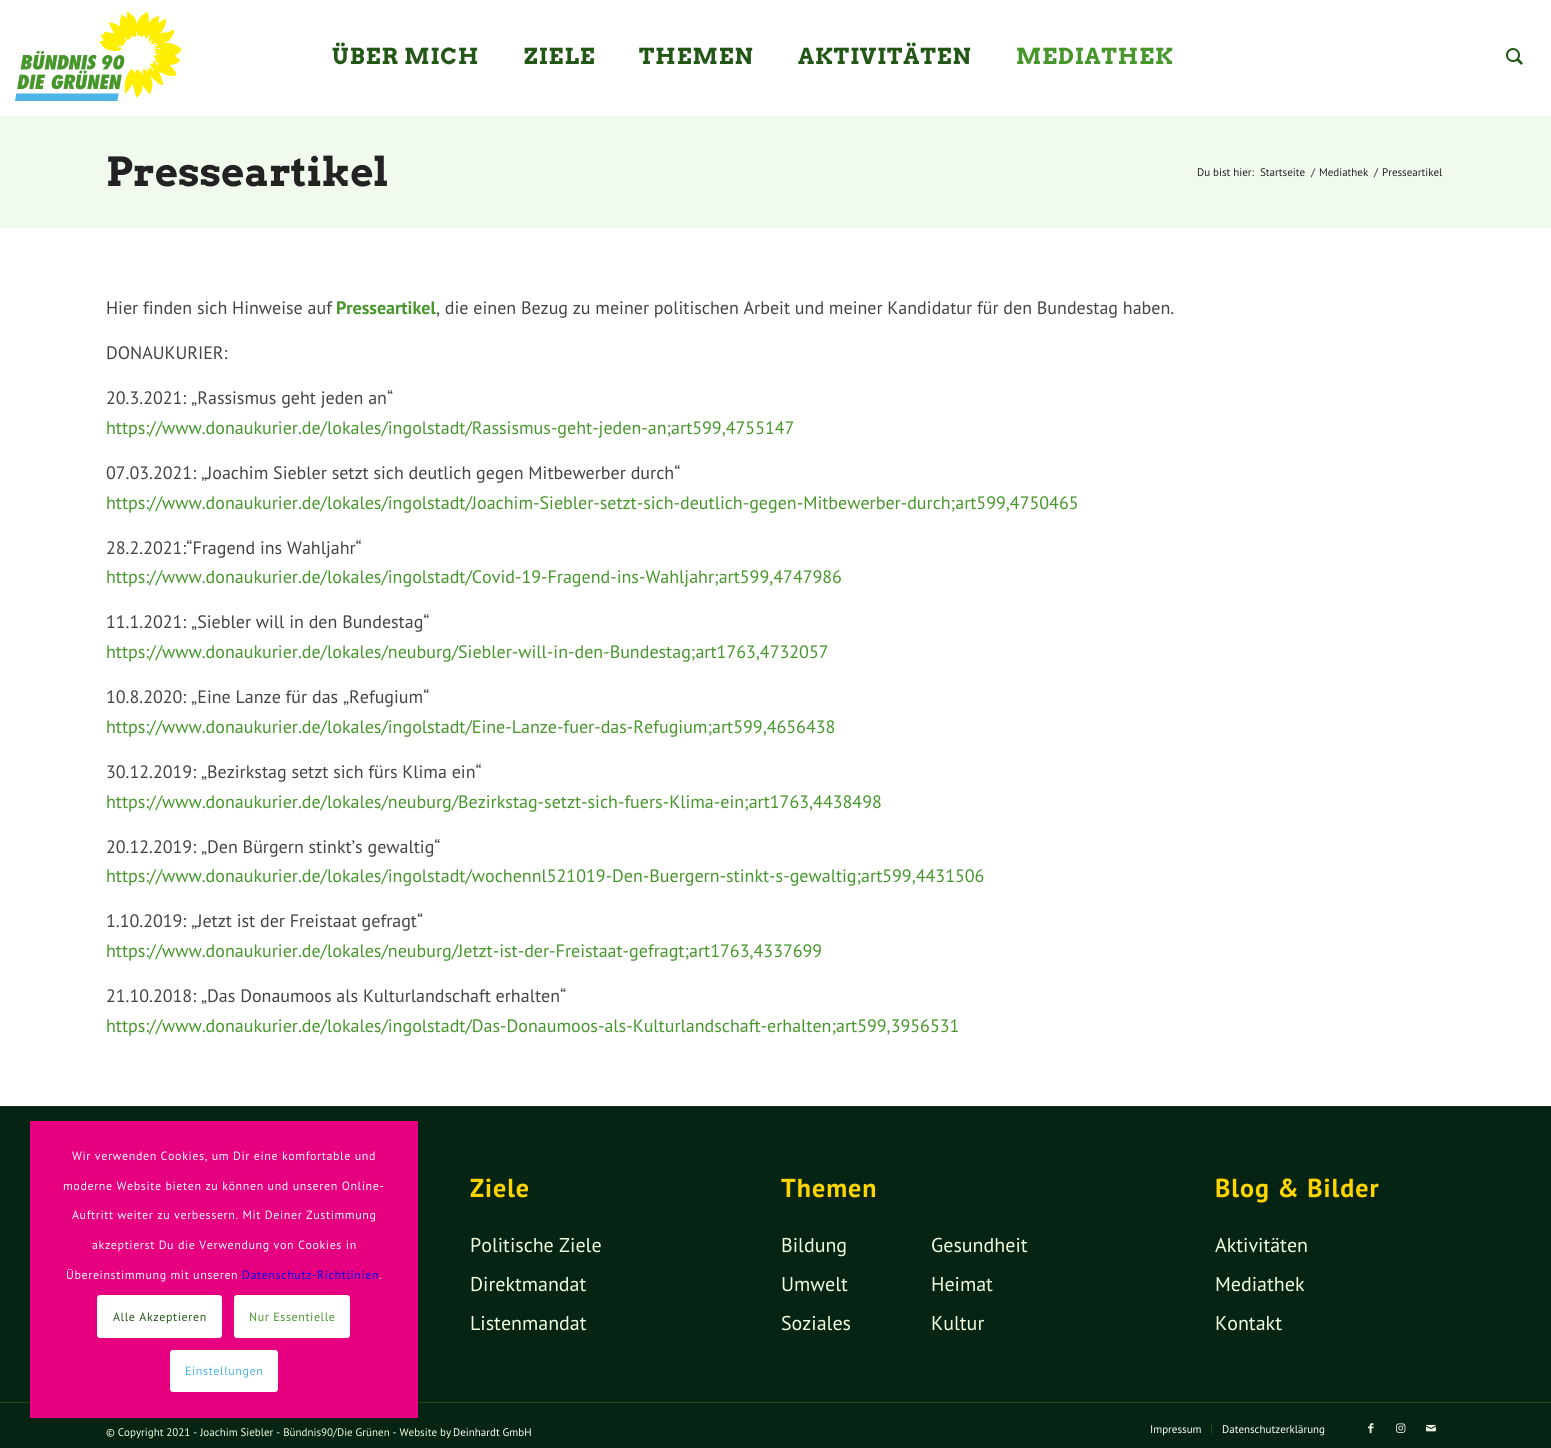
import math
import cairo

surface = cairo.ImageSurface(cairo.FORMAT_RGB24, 1551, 1448)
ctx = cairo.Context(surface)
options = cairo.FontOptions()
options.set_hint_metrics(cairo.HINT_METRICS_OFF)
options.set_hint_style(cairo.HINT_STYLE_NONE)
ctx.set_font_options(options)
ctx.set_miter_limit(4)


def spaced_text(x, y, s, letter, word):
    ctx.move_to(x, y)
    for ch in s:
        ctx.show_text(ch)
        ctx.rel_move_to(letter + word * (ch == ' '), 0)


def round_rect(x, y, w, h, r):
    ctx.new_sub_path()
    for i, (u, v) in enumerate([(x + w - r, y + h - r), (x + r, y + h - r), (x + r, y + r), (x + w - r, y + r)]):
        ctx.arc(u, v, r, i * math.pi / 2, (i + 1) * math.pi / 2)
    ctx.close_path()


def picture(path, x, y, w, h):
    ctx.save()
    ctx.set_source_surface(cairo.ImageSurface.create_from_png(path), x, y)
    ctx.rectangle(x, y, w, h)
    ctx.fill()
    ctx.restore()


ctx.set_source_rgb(1, 1, 1)
ctx.paint()
picture("img1.png", 15, 11, 167, 90)
ctx.select_font_face("Arvo", cairo.FONT_SLANT_NORMAL, cairo.FONT_WEIGHT_BOLD)
ctx.set_font_size(22)
ctx.set_source_rgb(0.137, 0.341, 0.086)
spaced_text(332, 64, "ÜBER MICH", 1, 0)
spaced_text(524, 64, "ZIELE", 1, 0)
spaced_text(639, 64, "THEMEN", 1, 0)
spaced_text(798, 64, "AKTIVITÄTEN", 1, 0)
ctx.set_source_rgb(0.275, 0.588, 0.169)
spaced_text(1016, 64, "MEDIATHEK", 1, 0)
picture("img2.png", 1506, 48, 17, 17)
ctx.set_source_rgb(0.941, 0.98, 0.929)
ctx.rectangle(0, 116, 1551, 112)
ctx.fill()
ctx.set_font_size(40)
ctx.set_source_rgb(0.133, 0.133, 0.133)
ctx.move_to(106, 186)
ctx.show_text("Presseartikel")
ctx.select_font_face("PT Sans")
ctx.set_font_size(11)
ctx.move_to(1197, 176)
ctx.show_text("Du bist hier:")
ctx.move_to(1260, 176)
ctx.show_text("Startseite")
ctx.move_to(1311, 176)
ctx.show_text("/")
ctx.move_to(1319, 176)
ctx.show_text("Mediathek")
ctx.move_to(1374, 176)
ctx.show_text("/")
ctx.move_to(1382, 176)
ctx.show_text("Presseartikel")
ctx.set_font_size(18)
ctx.set_source_rgb(0.267, 0.267, 0.267)
ctx.move_to(106, 314)
ctx.show_text("Hier finden sich Hinweise auf")
ctx.select_font_face("PT Sans", cairo.FONT_SLANT_NORMAL, cairo.FONT_WEIGHT_BOLD)
ctx.set_source_rgb(0.275, 0.588, 0.169)
ctx.move_to(336, 314)
ctx.show_text("Presseartikel")
ctx.select_font_face("PT Sans")
ctx.set_source_rgb(0.267, 0.267, 0.267)
ctx.move_to(436, 314)
ctx.show_text(", die einen Bezug zu meiner politischen Arbeit und meiner Kandidatur für den Bundestag haben.")
ctx.move_to(106, 359)
ctx.show_text("DONAUKURIER:")
ctx.move_to(106, 404)
ctx.show_text("20.3.2021: „Rassismus geht jeden an“")
ctx.set_source_rgb(0.275, 0.588, 0.169)
ctx.move_to(106, 434)
ctx.show_text("https://www.donaukurier.de/lokales/ingolstadt/Rassismus-geht-jeden-an;art599,4755147")
ctx.set_source_rgb(0.267, 0.267, 0.267)
ctx.move_to(106, 479)
ctx.show_text("07.03.2021: „Joachim Siebler setzt sich deutlich gegen Mitbewerber durch“")
ctx.set_source_rgb(0.275, 0.588, 0.169)
ctx.move_to(106, 509)
ctx.show_text("https://www.donaukurier.de/lokales/ingolstadt/Joachim-Siebler-setzt-sich-deutlich-gegen-Mitbewerber-durch;art599,4750465")
ctx.set_source_rgb(0.267, 0.267, 0.267)
ctx.move_to(106, 554)
ctx.show_text("28.2.2021:“Fragend ins Wahljahr“")
ctx.set_source_rgb(0.275, 0.588, 0.169)
ctx.move_to(106, 583)
ctx.show_text("https://www.donaukurier.de/lokales/ingolstadt/Covid-19-Fragend-ins-Wahljahr;art599,4747986")
ctx.set_source_rgb(0.267, 0.267, 0.267)
ctx.move_to(106, 628)
ctx.show_text("11.1.2021: „Siebler will in den Bundestag“")
ctx.set_source_rgb(0.275, 0.588, 0.169)
ctx.move_to(106, 658)
ctx.show_text("https://www.donaukurier.de/lokales/neuburg/Siebler-will-in-den-Bundestag;art1763,4732057")
ctx.set_source_rgb(0.267, 0.267, 0.267)
ctx.move_to(106, 703)
ctx.show_text("10.8.2020: „Eine Lanze für das „Refugium“")
ctx.set_source_rgb(0.275, 0.588, 0.169)
ctx.move_to(106, 733)
ctx.show_text("https://www.donaukurier.de/lokales/ingolstadt/Eine-Lanze-fuer-das-Refugium;art599,4656438")
ctx.set_source_rgb(0.267, 0.267, 0.267)
ctx.move_to(106, 778)
ctx.show_text("30.12.2019: „Bezirkstag setzt sich fürs Klima ein“")
ctx.set_source_rgb(0.275, 0.588, 0.169)
ctx.move_to(106, 808)
ctx.show_text("https://www.donaukurier.de/lokales/neuburg/Bezirkstag-setzt-sich-fuers-Klima-ein;art1763,4438498")
ctx.set_source_rgb(0.267, 0.267, 0.267)
ctx.move_to(106, 853)
ctx.show_text("20.12.2019: „Den Bürgern stinkt’s gewaltig“")
ctx.set_source_rgb(0.275, 0.588, 0.169)
ctx.move_to(106, 882)
ctx.show_text("https://www.donaukurier.de/lokales/ingolstadt/wochennl521019-Den-Buergern-stinkt-s-gewaltig;art599,4431506")
ctx.set_source_rgb(0.267, 0.267, 0.267)
ctx.move_to(106, 927)
ctx.show_text("1.10.2019: „Jetzt ist der Freistaat gefragt“")
ctx.set_source_rgb(0.275, 0.588, 0.169)
ctx.move_to(106, 957)
ctx.show_text("https://www.donaukurier.de/lokales/neuburg/Jetzt-ist-der-Freistaat-gefragt;art1763,4337699")
ctx.set_source_rgb(0.267, 0.267, 0.267)
ctx.move_to(106, 1002)
ctx.show_text("21.10.2018: „Das Donaumoos als Kulturlandschaft erhalten“")
ctx.set_source_rgb(0.275, 0.588, 0.169)
ctx.move_to(106, 1032)
ctx.show_text("https://www.donaukurier.de/lokales/ingolstadt/Das-Donaumoos-als-Kulturlandschaft-erhalten;art599,3956531")
ctx.set_source_rgb(0.027, 0.141, 0.082)
ctx.rectangle(0, 1107, 1551, 295)
ctx.fill()
ctx.set_source_rgb(0.09, 0.188, 0.059)
ctx.rectangle(0, 1106, 1551, 1)
ctx.fill()
ctx.select_font_face("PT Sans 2", cairo.FONT_SLANT_NORMAL, cairo.FONT_WEIGHT_BOLD)
ctx.set_font_size(26)
ctx.set_source_rgb(1, 0.835, 0)
spaced_text(470, 1197, "Ziele", 1, 0)
ctx.select_font_face("PT Sans")
ctx.set_font_size(20)
ctx.set_source_rgb(0.953, 1, 0.871)
ctx.move_to(470, 1252)
ctx.show_text("Politische Ziele")
ctx.move_to(470, 1291)
ctx.show_text("Direktmandat")
ctx.move_to(470, 1330)
ctx.show_text("Listenmandat")
ctx.select_font_face("PT Sans 2", cairo.FONT_SLANT_NORMAL, cairo.FONT_WEIGHT_BOLD)
ctx.set_font_size(26)
ctx.set_source_rgb(1, 0.835, 0)
spaced_text(781, 1197, "Themen", 1, 0)
ctx.select_font_face("PT Sans")
ctx.set_font_size(20)
ctx.set_source_rgb(0.953, 1, 0.871)
ctx.move_to(781, 1252)
ctx.show_text("Bildung")
ctx.move_to(781, 1291)
ctx.show_text("Umwelt")
ctx.move_to(781, 1330)
ctx.show_text("Soziales")
ctx.move_to(931, 1252)
ctx.show_text("Gesundheit")
ctx.move_to(931, 1291)
ctx.show_text("Heimat")
ctx.move_to(931, 1330)
ctx.show_text("Kultur")
ctx.select_font_face("PT Sans 2", cairo.FONT_SLANT_NORMAL, cairo.FONT_WEIGHT_BOLD)
ctx.set_font_size(26)
ctx.set_source_rgb(1, 0.835, 0)
spaced_text(1215, 1197, "Blog & Bilder", 1, 0)
ctx.select_font_face("PT Sans")
ctx.set_font_size(20)
ctx.set_source_rgb(0.953, 1, 0.871)
ctx.move_to(1215, 1252)
ctx.show_text("Aktivitäten")
ctx.move_to(1215, 1291)
ctx.show_text("Mediathek")
ctx.move_to(1215, 1330)
ctx.show_text("Kontakt")
ctx.set_source_rgb(0.027, 0.141, 0.082)
ctx.rectangle(0, 1403, 1551, 45)
ctx.fill()
ctx.set_source_rgb(0.114, 0.29, 0.055)
ctx.rectangle(0, 1402, 1551, 1)
ctx.fill()
ctx.set_font_size(11)
ctx.set_source_rgb(0.953, 1, 0.871)
ctx.move_to(106, 1436)
ctx.show_text("© Copyright 2021 - Joachim Siebler - Bündnis90/Die Grünen - Website by")
ctx.set_source_rgb(1, 1, 1)
ctx.move_to(453, 1436)
ctx.show_text("Deinhardt GmbH")
ctx.move_to(1150, 1433)
ctx.show_text("Impressum")
ctx.set_source_rgb(0.114, 0.29, 0.055)
ctx.rectangle(1211, 1424, 1, 10)
ctx.fill()
ctx.set_source_rgb(1, 1, 1)
ctx.move_to(1222, 1433)
ctx.show_text("Datenschutzerklärung")
picture("img3.png", 1368, 1423, 6, 11)
picture("img4.png", 1396, 1423, 10, 10)
picture("img5.png", 1426, 1424, 10, 8)
ctx.set_source_rgb(0.902, 0, 0.498)
ctx.rectangle(30, 1121, 388, 297)
ctx.fill()
ctx.set_font_size(12)
ctx.set_source_rgb(1, 1, 1)
spaced_text(72, 1160, "Wir verwenden Cookies, um Dir eine komfortable und", 0.6, 0)
spaced_text(63, 1190, "moderne Website bieten zu können und unseren Online-", 0.6, 0)
spaced_text(72, 1219, "Auftritt weiter zu verbessern. Mit Deiner Zustimmung", 0.6, 0)
spaced_text(92, 1249, "akzeptierst Du die Verwendung von Cookies in", 0.6, 0)
spaced_text(66, 1279, "Übereinstimmung mit unseren", 0.6, 0)
ctx.set_source_rgb(0, 0, 0.933)
spaced_text(242, 1279, "Datenschutz-Richtlinien", 0.6, 0)
ctx.set_source_rgb(1, 1, 1)
spaced_text(379, 1279, ".", 0.6, 0)
round_rect(97, 1295, 125, 43, 3)
ctx.fill()
ctx.set_source_rgb(0.137, 0.341, 0.086)
spaced_text(113, 1321, "Alle Akzeptieren", 0.6, 0)
ctx.set_source_rgb(1, 1, 1)
round_rect(234, 1295, 116, 43, 3)
ctx.fill()
ctx.set_source_rgb(0.275, 0.588, 0.169)
spaced_text(249, 1321, "Nur Essentielle", 0.6, 0)
ctx.set_source_rgb(1, 1, 1)
round_rect(171, 1351, 106, 40, 2)
ctx.fill_preserve()
ctx.stroke()
ctx.set_source_rgb(0.298, 0.702, 0.906)
spaced_text(185, 1375, "Einstellungen", 0.6, 0)
surface.write_to_png("page.png")
